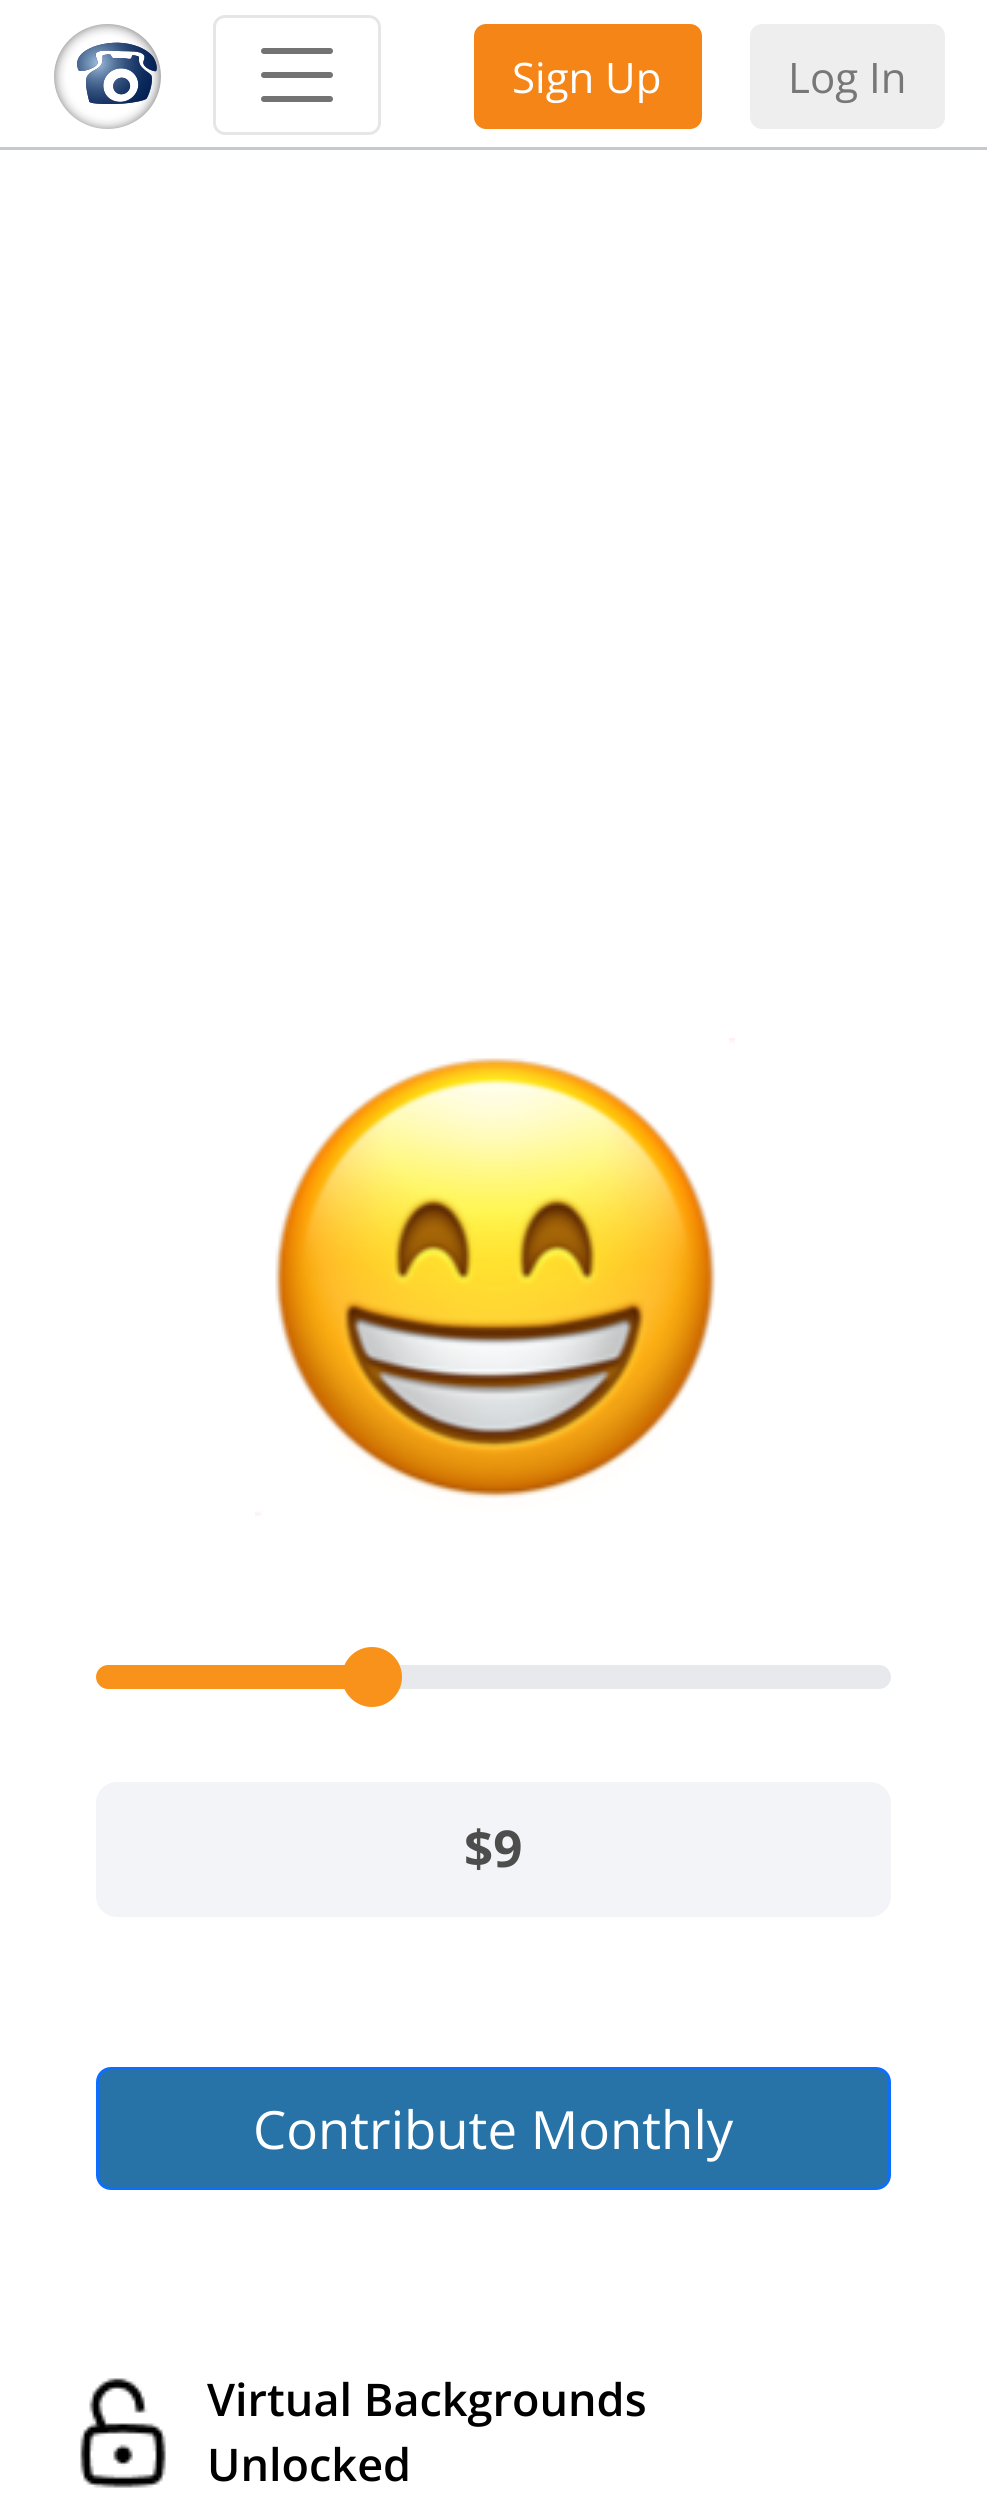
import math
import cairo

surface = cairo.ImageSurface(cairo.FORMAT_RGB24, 987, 2494)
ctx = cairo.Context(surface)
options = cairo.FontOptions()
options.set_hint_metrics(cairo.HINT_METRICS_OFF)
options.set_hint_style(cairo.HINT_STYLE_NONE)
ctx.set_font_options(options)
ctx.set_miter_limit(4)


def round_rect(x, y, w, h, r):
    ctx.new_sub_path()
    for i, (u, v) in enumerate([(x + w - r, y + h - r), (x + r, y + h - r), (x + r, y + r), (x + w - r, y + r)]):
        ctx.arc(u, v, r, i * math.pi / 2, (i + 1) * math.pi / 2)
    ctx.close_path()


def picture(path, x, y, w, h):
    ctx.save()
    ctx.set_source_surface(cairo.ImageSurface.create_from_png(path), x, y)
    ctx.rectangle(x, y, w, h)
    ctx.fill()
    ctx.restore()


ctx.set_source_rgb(1, 1, 1)
ctx.paint()
ctx.set_source_rgb(0.769, 0.788, 0.824)
ctx.rectangle(0, 147, 987, 3)
ctx.fill()
picture("img1.png", 54, 24, 107, 105)
round_rect(214.5, 16.5, 165, 117, 10.5)
ctx.set_source_rgb(0.902, 0.902, 0.902)
ctx.set_line_width(3)
ctx.stroke()
ctx.new_path()
ctx.move_to(264, 51)
ctx.line_to(330, 51)
ctx.move_to(264, 75)
ctx.line_to(330, 75)
ctx.move_to(264, 99)
ctx.line_to(330, 99)
ctx.set_source_rgb(0.451, 0.451, 0.451)
ctx.set_line_width(6)
ctx.set_line_cap(cairo.LINE_CAP_ROUND)
ctx.stroke()
ctx.set_source_rgb(0.961, 0.522, 0.09)
round_rect(474, 24, 228, 105, 12)
ctx.fill()
ctx.select_font_face("Open Sans")
ctx.set_font_size(42)
ctx.set_source_rgb(1, 1, 1)
ctx.move_to(512, 93)
ctx.show_text("Sign Up")
ctx.set_source_rgb(0.933, 0.933, 0.933)
round_rect(751.5, 25.5, 192, 102, 10.5)
ctx.fill_preserve()
ctx.set_line_width(3)
ctx.set_line_cap(cairo.LINE_CAP_BUTT)
ctx.stroke()
ctx.set_source_rgb(0.467, 0.467, 0.467)
ctx.move_to(788, 93)
ctx.show_text("Log In")
picture("img2.png", 255, 1038, 480, 478)
ctx.set_source_rgb(0.973, 0.573, 0.102)
ctx.new_path()
ctx.move_to(108, 1665)
ctx.line_to(360, 1665)
ctx.line_to(360, 1689)
ctx.line_to(108, 1689)
ctx.curve_to(101.5, 1689, 96, 1683.5, 96, 1677)
ctx.curve_to(96, 1670.5, 101.5, 1665, 108, 1665)
ctx.close_path()
ctx.fill()
ctx.set_source_rgb(0.906, 0.914, 0.929)
ctx.new_path()
ctx.move_to(360, 1665)
ctx.line_to(879, 1665)
ctx.curve_to(885.5, 1665, 891, 1670.5, 891, 1677)
ctx.curve_to(891, 1683.5, 885.5, 1689, 879, 1689)
ctx.line_to(360, 1689)
ctx.close_path()
ctx.fill()
ctx.set_source_rgb(0.973, 0.573, 0.102)
ctx.arc(372, 1677, 30, 0, 2 * math.pi)
ctx.fill()
ctx.set_source_rgb(0.953, 0.957, 0.965)
round_rect(96, 1782, 795, 135, 21)
ctx.fill()
ctx.select_font_face("Open Sans", cairo.FONT_SLANT_NORMAL, cairo.FONT_WEIGHT_BOLD)
ctx.set_font_size(51)
ctx.set_source_rgb(0.302, 0.302, 0.302)
ctx.move_to(464, 1867)
ctx.show_text("$9")
ctx.set_source_rgb(0.153, 0.451, 0.655)
round_rect(97.5, 2068.5, 792, 120, 13.5)
ctx.fill_preserve()
ctx.set_source_rgb(0.051, 0.431, 0.992)
ctx.stroke()
ctx.select_font_face("Open Sans")
ctx.set_font_size(52.75)
ctx.set_source_rgb(1, 1, 1)
ctx.move_to(253, 2149)
ctx.show_text("Contribute Monthly")
picture("img3.png", 80, 2378, 86, 110)
ctx.select_font_face("Open Sans SemiBold")
ctx.set_font_size(45)
ctx.set_source_rgb(0, 0, 0)
ctx.move_to(207, 2416)
ctx.show_text("Virtual Backgrounds")
ctx.move_to(207, 2481)
ctx.show_text("Unlocked")
surface.write_to_png("page.png")
